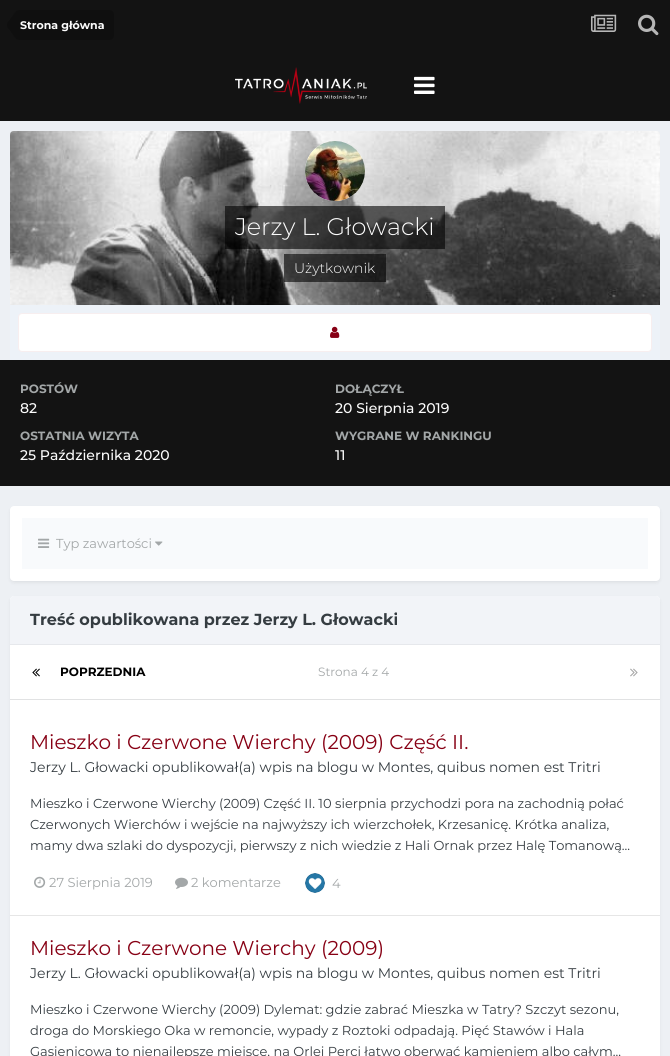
import math
import cairo

surface = cairo.ImageSurface(cairo.FORMAT_RGB24, 670, 1056)
ctx = cairo.Context(surface)
options = cairo.FontOptions()
options.set_hint_metrics(cairo.HINT_METRICS_OFF)
options.set_hint_style(cairo.HINT_STYLE_NONE)
ctx.set_font_options(options)
ctx.set_miter_limit(4)


def round_rect(x, y, w, h, r):
    ctx.new_sub_path()
    for i, (u, v) in enumerate([(x + w - r, y + h - r), (x + r, y + h - r), (x + r, y + r), (x + w - r, y + r)]):
        ctx.arc(u, v, r, i * math.pi / 2, (i + 1) * math.pi / 2)
    ctx.close_path()


def shadow(x, y, w, h, r, blur, alpha):
    ctx.push_group_with_content(cairo.CONTENT_ALPHA)
    ctx.set_operator(cairo.OPERATOR_SOURCE)
    for i in range(15, -16, -2):
        e = blur * i / 6
        if min(w, h) + 2 * e > 0:
            ctx.set_source_rgba(0, 0, 0, alpha * math.erfc((i - 1) / 8.5) / 2)
            round_rect(x - e, y - e, w + 2 * e, h + 2 * e, max(0, min(r + e + blur * .6, min(w, h) / 2 + e)))
            ctx.fill()
    ctx.mask(ctx.pop_group())


def picture(path, x, y, w, h):
    ctx.save()
    ctx.set_source_surface(cairo.ImageSurface.create_from_png(path), x, y)
    ctx.rectangle(x, y, w, h)
    ctx.fill()
    ctx.restore()


ctx.set_source_rgb(0.929, 0.941, 0.957)
ctx.paint()
ctx.set_source_rgb(0.078, 0.078, 0.078)
ctx.rectangle(0, 0, 670, 121)
ctx.fill()
picture("img1.png", 235, 67, 132, 37)
picture("img2.png", 414, 76, 21, 18)
ctx.set_source_rgb(0.059, 0.059, 0.059)
ctx.new_path()
ctx.move_to(20, 10)
ctx.line_to(109, 10)
ctx.curve_to(112, 10, 114, 12, 114, 15)
ctx.line_to(114, 35)
ctx.curve_to(114, 38, 112, 40, 109, 40)
ctx.line_to(20, 40)
ctx.close_path()
ctx.fill()
ctx.new_path()
ctx.move_to(20, 25)
ctx.line_to(20, 40)
ctx.curve_to(15.5, 40, 13.5, 35.5, 11, 32)
ctx.curve_to(9.5, 30, 7, 28, 7, 25)
ctx.close_path()
ctx.move_to(20, 25)
ctx.line_to(7, 25)
ctx.curve_to(7, 22, 9.5, 20, 11, 18)
ctx.curve_to(13.5, 14.5, 15.5, 10, 20, 10)
ctx.close_path()
ctx.fill()
ctx.select_font_face("Montserrat", cairo.FONT_SLANT_NORMAL, cairo.FONT_WEIGHT_BOLD)
ctx.set_font_size(11)
ctx.set_source_rgb(0.988, 0.988, 0.988)
ctx.move_to(20, 29)
ctx.show_text("Strona główna")
picture("img3.png", 591, 14, 26, 18)
picture("img4.png", 638, 14, 21, 22)
picture("img5.png", 10, 131, 650, 174)
ctx.set_source_rgb(1, 1, 1)
ctx.arc(335, 171, 30, 0, 2 * math.pi)
ctx.fill()
picture("img6.png", 305, 141, 60, 60)
ctx.set_source_rgba(0, 0, 0, 0.6)
ctx.rectangle(225, 206, 220, 43)
ctx.fill()
ctx.select_font_face("Montserrat Light")
ctx.set_font_size(24)
ctx.set_source_rgb(0.988, 0.988, 0.988)
ctx.move_to(235, 235)
ctx.show_text("Jerzy L. Głowacki")
ctx.set_source_rgba(0, 0, 0, 0.6)
ctx.rectangle(284, 254, 102, 28)
ctx.fill()
ctx.set_font_size(14)
ctx.set_source_rgb(0.988, 0.988, 0.988)
ctx.move_to(294, 273)
ctx.show_text("Użytkownik")
ctx.set_source_rgb(0.929, 0.949, 0.969)
ctx.rectangle(10, 305, 650, 55)
ctx.fill()
ctx.set_source_rgb(1, 1, 1)
round_rect(18, 313, 634, 39, 4)
ctx.fill()
round_rect(18.5, 313.5, 633, 38, 3.5)
ctx.set_source_rgba(0.529, 0, 0.082, 0.07)
ctx.set_line_width(1)
ctx.stroke()
picture("img7.png", 330, 326, 10, 12)
ctx.set_source_rgb(0.078, 0.078, 0.078)
ctx.rectangle(0, 360, 670, 126)
ctx.fill()
ctx.select_font_face("Montserrat", cairo.FONT_SLANT_NORMAL, cairo.FONT_WEIGHT_BOLD)
ctx.set_font_size(12)
ctx.set_source_rgb(0.639, 0.655, 0.659)
ctx.move_to(20, 393)
ctx.show_text("POSTÓW")
ctx.select_font_face("Montserrat Medium")
ctx.set_font_size(14)
ctx.set_source_rgb(0.988, 0.988, 0.988)
ctx.move_to(20, 413)
ctx.show_text("82")
ctx.select_font_face("Montserrat", cairo.FONT_SLANT_NORMAL, cairo.FONT_WEIGHT_BOLD)
ctx.set_font_size(12)
ctx.set_source_rgb(0.639, 0.655, 0.659)
ctx.move_to(335, 393)
ctx.show_text("DOŁĄCZYŁ")
ctx.select_font_face("Montserrat Medium")
ctx.set_font_size(14)
ctx.set_source_rgb(0.988, 0.988, 0.988)
ctx.move_to(335, 413)
ctx.show_text("20 Sierpnia 2019")
ctx.select_font_face("Montserrat", cairo.FONT_SLANT_NORMAL, cairo.FONT_WEIGHT_BOLD)
ctx.set_font_size(12)
ctx.set_source_rgb(0.639, 0.655, 0.659)
ctx.move_to(20, 440)
ctx.show_text("OSTATNIA WIZYTA")
ctx.select_font_face("Montserrat Medium")
ctx.set_font_size(14)
ctx.set_source_rgb(0.988, 0.988, 0.988)
ctx.move_to(20, 460)
ctx.show_text("25 Października 2020")
ctx.select_font_face("Montserrat", cairo.FONT_SLANT_NORMAL, cairo.FONT_WEIGHT_BOLD)
ctx.set_font_size(12)
ctx.set_source_rgb(0.639, 0.655, 0.659)
ctx.move_to(335, 440)
ctx.show_text("WYGRANE W RANKINGU")
ctx.select_font_face("Montserrat Medium")
ctx.set_font_size(14)
ctx.set_source_rgb(0.988, 0.988, 0.988)
ctx.move_to(335, 460)
ctx.show_text("11")
ctx.set_source_rgb(0.078, 0.078, 0.078)
shadow(11, 509, 648, 73, 3, 2, 0.1)
ctx.set_source_rgb(1, 1, 1)
round_rect(10, 506, 650, 75, 4)
ctx.fill()
ctx.set_source_rgb(0.969, 0.98, 0.988)
ctx.rectangle(22, 518, 626, 51)
ctx.fill()
picture("img8.png", 38, 538, 12, 10)
ctx.select_font_face("Montserrat")
ctx.set_font_size(13)
ctx.set_source_rgb(0.639, 0.655, 0.659)
ctx.move_to(56, 548)
ctx.show_text("Typ zawartości")
picture("img9.png", 155, 541, 8, 5)
ctx.set_source_rgb(0.078, 0.078, 0.078)
shadow(11, 599, 648, 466, 3, 2, 0.1)
ctx.set_source_rgb(1, 1, 1)
round_rect(10, 596, 650, 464, 4)
ctx.fill()
ctx.set_source_rgb(0.949, 0.957, 0.969)
ctx.new_path()
ctx.move_to(14, 596)
ctx.line_to(656, 596)
ctx.curve_to(658, 596, 660, 598, 660, 600)
ctx.line_to(660, 645)
ctx.line_to(10, 645)
ctx.line_to(10, 600)
ctx.curve_to(10, 598, 12, 596, 14, 596)
ctx.close_path()
ctx.fill()
ctx.set_source_rgb(0.902, 0.91, 0.922)
ctx.rectangle(10, 644, 650, 1)
ctx.fill()
ctx.select_font_face("Montserrat", cairo.FONT_SLANT_NORMAL, cairo.FONT_WEIGHT_BOLD)
ctx.set_font_size(16)
ctx.set_source_rgb(0.208, 0.235, 0.255)
ctx.move_to(30, 625)
ctx.show_text("Treść opublikowana przez Jerzy L. Głowacki")
ctx.set_source_rgb(0.882, 0.886, 0.89)
ctx.rectangle(10, 699, 650, 1)
ctx.fill()
picture("img10.png", 32, 668, 8, 9)
ctx.set_font_size(12)
ctx.set_source_rgb(0, 0, 0)
ctx.move_to(60, 676)
ctx.show_text("POPRZEDNIA")
ctx.select_font_face("Montserrat")
ctx.set_source_rgb(0.639, 0.655, 0.659)
ctx.move_to(318, 676)
ctx.show_text("Strona 4 z 4")
picture("img11.png", 630, 668, 8, 9)
ctx.set_source_rgb(0.902, 0.902, 0.902)
ctx.rectangle(10, 915, 650, 1)
ctx.fill()
ctx.set_font_size(20)
ctx.set_source_rgb(0.529, 0, 0.082)
ctx.move_to(30, 749)
ctx.show_text("Mieszko i Czerwone Wierchy (2009) Część II.")
ctx.set_font_size(14)
ctx.set_source_rgb(0.208, 0.235, 0.255)
ctx.move_to(30, 772)
ctx.show_text("Jerzy L. Głowacki opublikował(a) wpis na blogu w Montes, quibus nomen est Tritri")
ctx.set_font_size(13)
ctx.move_to(30, 808)
ctx.show_text("Mieszko i Czerwone Wierchy (2009) Część II. 10 sierpnia przychodzi pora na zachodnią połać")
ctx.move_to(30, 829)
ctx.show_text("Czerwonych Wierchów i wejście na najwyższy ich wierzchołek, Krzesanicę. Krótka analiza,")
ctx.move_to(30, 850)
ctx.show_text("mamy dwa szlaki do dyspozycji, pierwszy z nich wiedzie z Hali Ornak przez Halę Tomanową...")
picture("img12.png", 34, 876, 12, 12)
ctx.set_source_rgb(0.639, 0.655, 0.659)
ctx.move_to(49, 887)
ctx.show_text("27 Sierpnia 2019")
picture("img13.png", 175, 877, 13, 12)
ctx.move_to(191, 887)
ctx.show_text("2 komentarze")
picture("img14.png", 305, 873, 20, 20)
ctx.move_to(332, 888)
ctx.show_text("4")
ctx.set_font_size(20)
ctx.set_source_rgb(0.529, 0, 0.082)
ctx.move_to(30, 955)
ctx.show_text("Mieszko i Czerwone Wierchy (2009)")
ctx.set_font_size(14)
ctx.set_source_rgb(0.208, 0.235, 0.255)
ctx.move_to(30, 978)
ctx.show_text("Jerzy L. Głowacki opublikował(a) wpis na blogu w Montes, quibus nomen est Tritri")
ctx.set_font_size(13)
ctx.move_to(30, 1014)
ctx.show_text("Mieszko i Czerwone Wierchy (2009) Dylemat: gdzie zabrać Mieszka w Tatry? Szczyt sezonu,")
ctx.move_to(30, 1035)
ctx.show_text("droga do Morskiego Oka w remoncie, wypady z Roztoki odpadają. Pięć Stawów i Hala")
ctx.move_to(30, 1056)
ctx.show_text("Gąsienicowa to nienajlepsze miejsce, na Orlej Perci łatwo oberwać kamieniem albo całym...")
surface.write_to_png("page.png")
